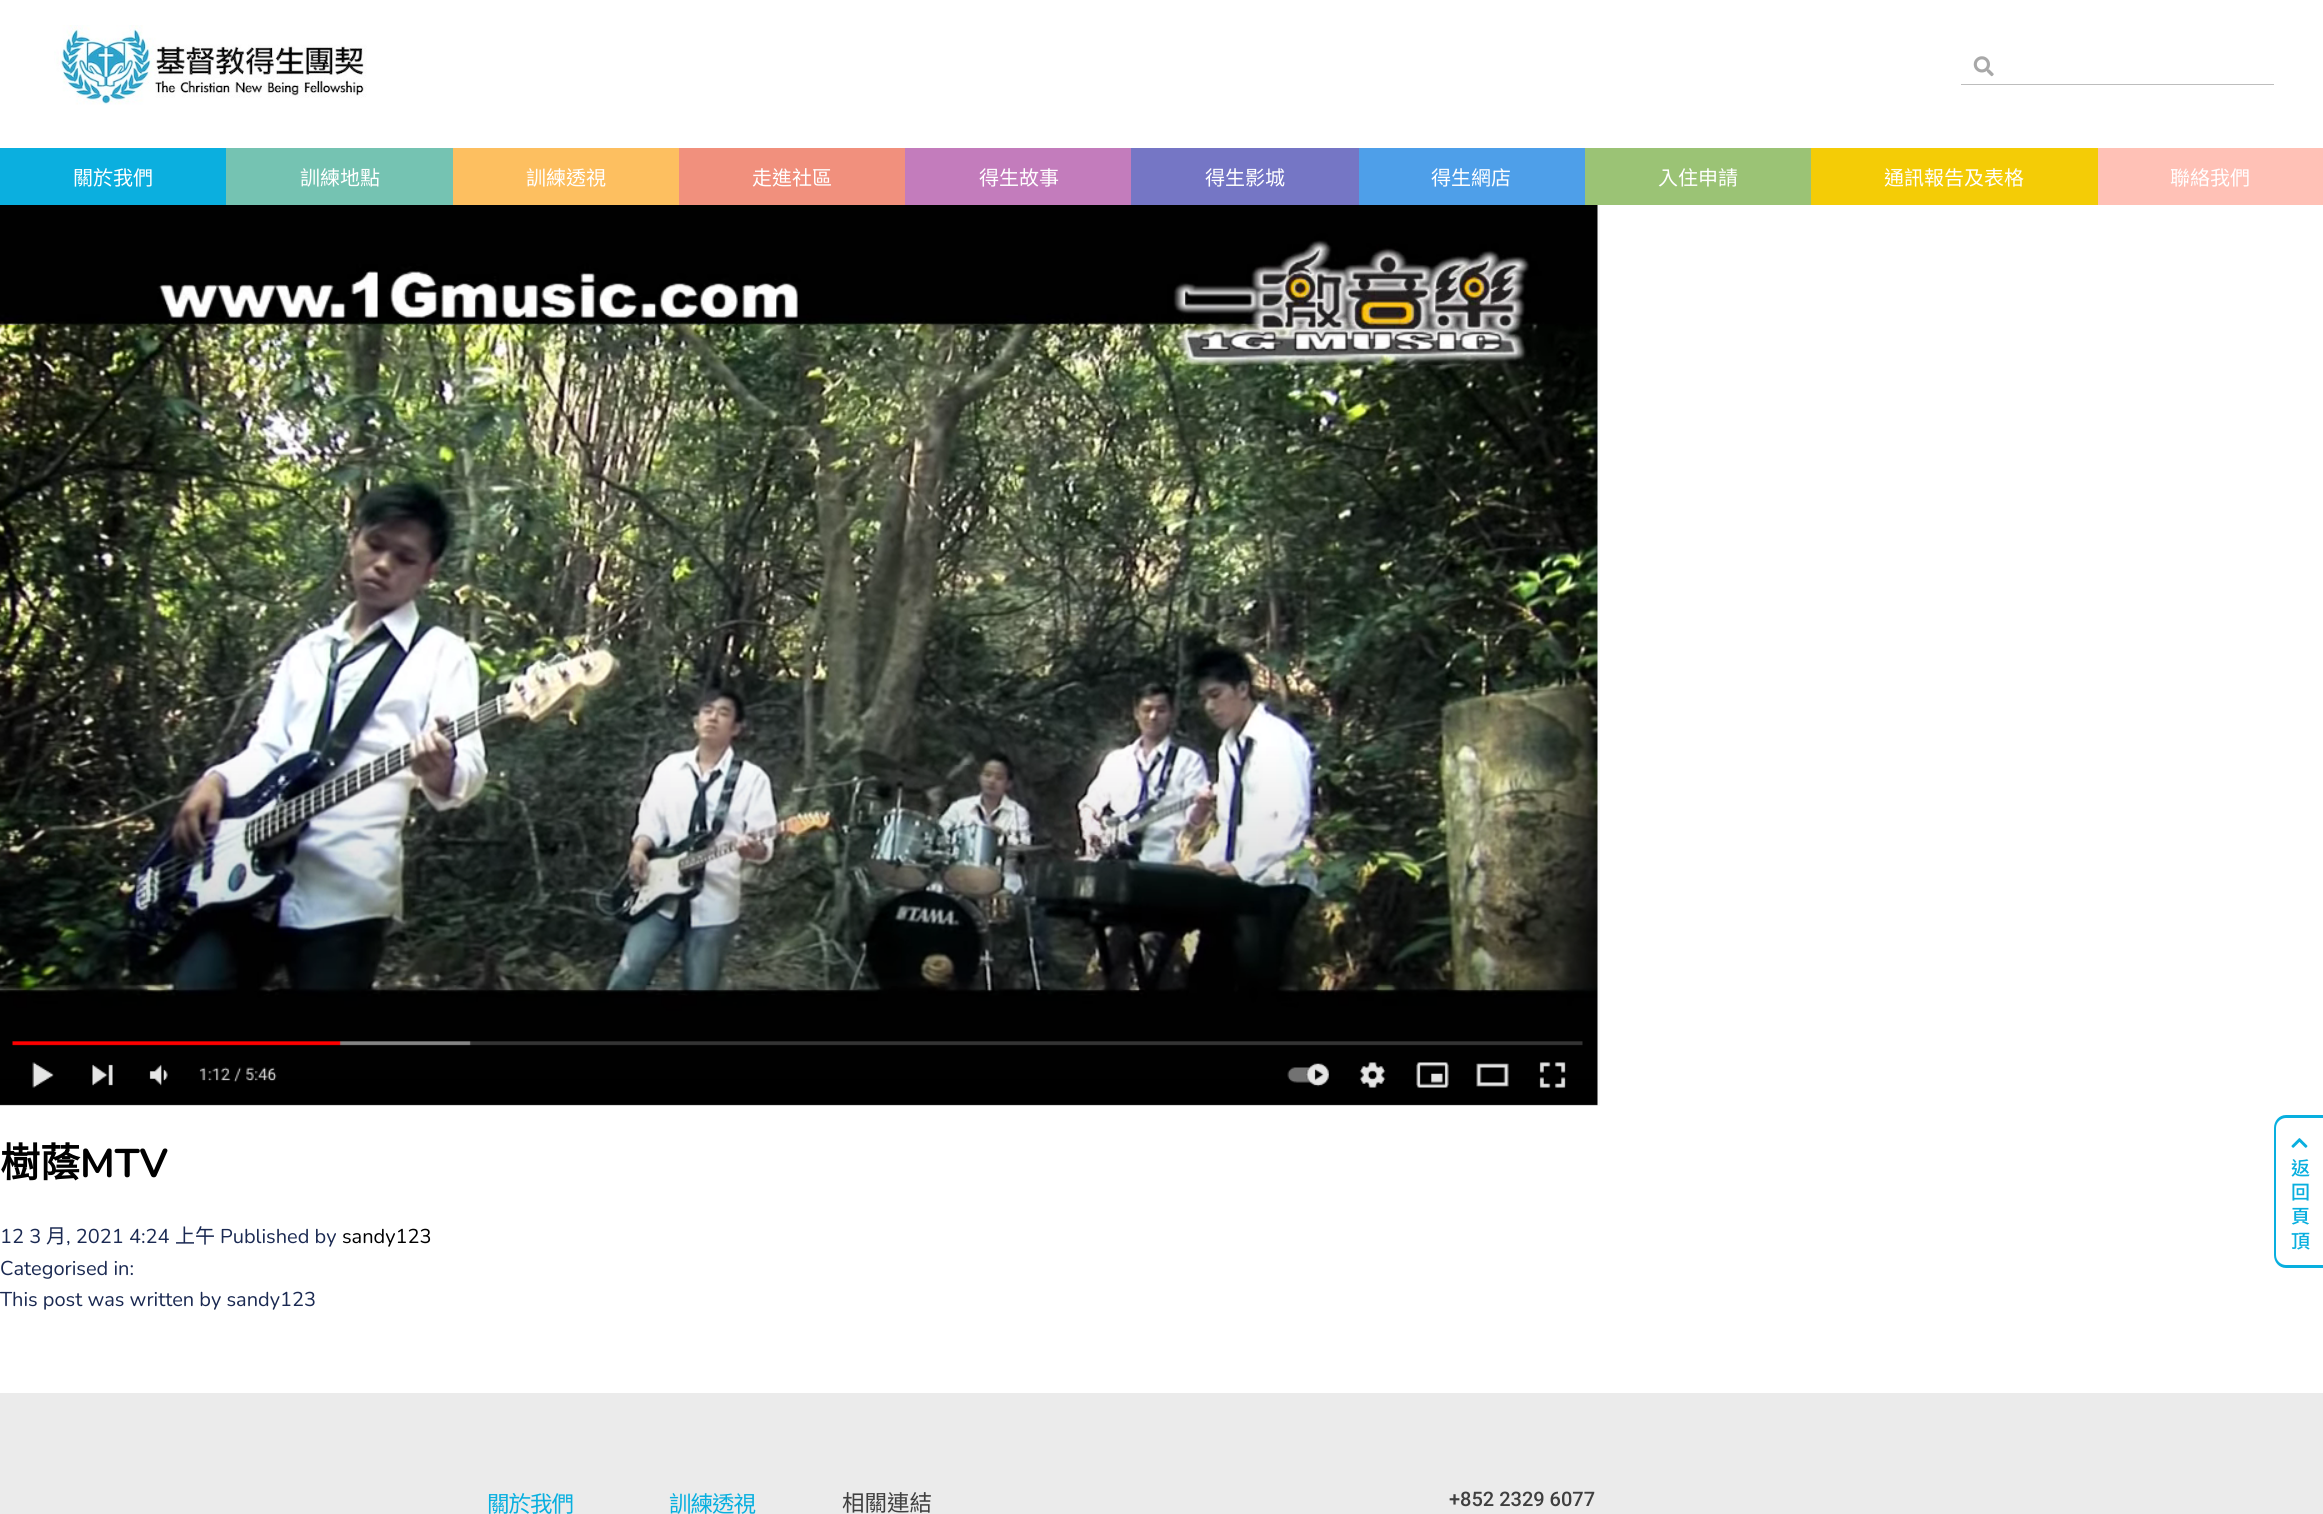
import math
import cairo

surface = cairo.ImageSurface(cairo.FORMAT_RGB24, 2323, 1514)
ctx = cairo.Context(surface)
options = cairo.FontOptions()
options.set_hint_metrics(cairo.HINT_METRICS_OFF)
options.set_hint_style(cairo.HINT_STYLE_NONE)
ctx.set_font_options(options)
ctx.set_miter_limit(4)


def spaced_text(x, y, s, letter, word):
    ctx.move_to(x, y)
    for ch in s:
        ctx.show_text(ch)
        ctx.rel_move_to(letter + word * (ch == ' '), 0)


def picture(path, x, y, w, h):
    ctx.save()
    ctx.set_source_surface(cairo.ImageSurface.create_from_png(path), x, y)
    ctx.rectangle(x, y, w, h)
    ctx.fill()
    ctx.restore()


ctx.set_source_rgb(1, 1, 1)
ctx.paint()
picture("img1.png", 54, 25, 313, 80)
ctx.set_source_rgb(0.741, 0.741, 0.741)
ctx.rectangle(1961, 84, 313, 1)
ctx.fill()
picture("img2.png", 1973, 56, 21, 21)
ctx.set_source_rgb(0.043, 0.686, 0.875)
ctx.rectangle(0, 148, 226, 57)
ctx.fill()
ctx.select_font_face("Noto Sans HK")
ctx.set_font_size(20)
ctx.set_source_rgb(1, 1, 1)
ctx.move_to(73, 185)
ctx.show_text("關於我們")
ctx.set_source_rgb(0.459, 0.765, 0.698)
ctx.rectangle(226, 148, 227, 57)
ctx.fill()
ctx.set_source_rgb(1, 1, 1)
ctx.move_to(300, 185)
ctx.show_text("訓練地點")
ctx.set_source_rgb(0.992, 0.749, 0.376)
ctx.rectangle(453, 148, 226, 57)
ctx.fill()
ctx.set_source_rgb(1, 1, 1)
ctx.move_to(526, 185)
ctx.show_text("訓練透視")
ctx.set_source_rgb(0.945, 0.565, 0.49)
ctx.rectangle(679, 148, 226, 57)
ctx.fill()
ctx.set_source_rgb(1, 1, 1)
ctx.move_to(752, 185)
ctx.show_text("走進社區")
ctx.set_source_rgb(0.765, 0.486, 0.737)
ctx.rectangle(905, 148, 226, 57)
ctx.fill()
ctx.set_source_rgb(1, 1, 1)
ctx.move_to(979, 185)
ctx.show_text("得生故事")
ctx.set_source_rgb(0.459, 0.463, 0.773)
ctx.rectangle(1131, 148, 228, 57)
ctx.fill()
ctx.set_source_rgb(1, 1, 1)
ctx.move_to(1205, 185)
ctx.show_text("得生影城")
ctx.set_source_rgb(0.306, 0.624, 0.914)
ctx.rectangle(1359, 148, 226, 57)
ctx.fill()
ctx.set_source_rgb(1, 1, 1)
ctx.move_to(1431, 185)
ctx.show_text("得生網店")
ctx.set_source_rgb(0.608, 0.765, 0.459)
ctx.rectangle(1585, 148, 226, 57)
ctx.fill()
ctx.set_source_rgb(1, 1, 1)
ctx.move_to(1658, 185)
ctx.show_text("入住申請")
ctx.set_source_rgb(0.957, 0.8, 0.027)
ctx.rectangle(1811, 148, 287, 57)
ctx.fill()
ctx.set_source_rgb(1, 1, 1)
ctx.move_to(1884, 185)
ctx.show_text("通訊報告及表格")
ctx.set_source_rgb(1, 0.757, 0.714)
ctx.rectangle(2098, 148, 225, 57)
ctx.fill()
ctx.set_source_rgb(1, 1, 1)
ctx.move_to(2170, 185)
ctx.show_text("聯絡我們")
picture("img3.png", 0, 205, 1600, 901)
ctx.select_font_face("Noto Sans CJK HK", cairo.FONT_SLANT_NORMAL, cairo.FONT_WEIGHT_BOLD)
ctx.set_font_size(40)
ctx.set_source_rgb(0, 0, 0)
ctx.move_to(0, 1177)
ctx.show_text("樹蔭")
ctx.select_font_face("Nunito", cairo.FONT_SLANT_NORMAL, cairo.FONT_WEIGHT_BOLD)
ctx.move_to(80, 1177)
ctx.show_text("MTV")
ctx.select_font_face("Nunito")
ctx.set_font_size(20)
ctx.set_source_rgb(0.102, 0.161, 0.322)
ctx.move_to(0, 1243)
ctx.show_text("12 3")
ctx.select_font_face("Noto Sans CJK HK")
ctx.move_to(46, 1243)
ctx.show_text("月")
ctx.select_font_face("Nunito")
ctx.move_to(66, 1243)
ctx.show_text(", 2021 4:24")
ctx.select_font_face("Noto Sans CJK HK")
ctx.move_to(175, 1243)
ctx.show_text("上午")
ctx.select_font_face("Nunito")
ctx.move_to(220, 1243)
ctx.show_text("Published by")
ctx.set_source_rgb(0, 0, 0)
ctx.move_to(342, 1243)
ctx.show_text("sandy123")
ctx.set_source_rgb(0.102, 0.161, 0.322)
ctx.move_to(0, 1275)
ctx.show_text("Categorised in:")
ctx.move_to(0, 1306)
ctx.show_text("This post was written by sandy123")
ctx.set_source_rgb(0.035, 0.686, 0.875)
ctx.set_fill_rule(cairo.FILL_RULE_EVEN_ODD)
ctx.new_path()
ctx.move_to(2286, 1115)
ctx.line_to(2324, 1115)
ctx.line_to(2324, 1268)
ctx.line_to(2286, 1268)
ctx.curve_to(2279, 1268, 2274, 1262, 2274, 1255)
ctx.line_to(2274, 1128)
ctx.curve_to(2274, 1121, 2279, 1115, 2286, 1115)
ctx.close_path()
ctx.move_to(2286, 1118)
ctx.line_to(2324, 1118)
ctx.line_to(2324, 1265)
ctx.line_to(2286, 1265)
ctx.curve_to(2281, 1265, 2276, 1261, 2276, 1255)
ctx.line_to(2276, 1128)
ctx.curve_to(2276, 1122, 2281, 1118, 2286, 1118)
ctx.close_path()
ctx.fill()
picture("img4.png", 2291, 1138, 17, 10)
ctx.select_font_face("Noto Sans HK Medium")
ctx.set_font_size(19)
ctx.move_to(2291, 1175)
ctx.show_text("返")
ctx.move_to(2291, 1199)
ctx.show_text("回")
ctx.move_to(2291, 1223)
ctx.show_text("頁")
ctx.move_to(2291, 1248)
ctx.show_text("頂")
ctx.set_source_rgb(0.918, 0.918, 0.918)
ctx.rectangle(0, 1393, 2323, 121)
ctx.fill()
ctx.select_font_face("Noto Sans CJK HK")
ctx.set_font_size(22.5)
ctx.set_source_rgb(0.035, 0.686, 0.875)
spaced_text(487, 1512, "關於我們", -1, 0)
spaced_text(669, 1512, "訓練透視", -1, 0)
ctx.set_source_rgb(0.247, 0.247, 0.247)
ctx.move_to(842, 1511)
ctx.show_text("相關連結")
ctx.select_font_face("Roboto Medium")
ctx.set_font_size(20)
ctx.move_to(1449, 1506)
ctx.show_text("+852 2329 6077")
surface.write_to_png("page.png")
